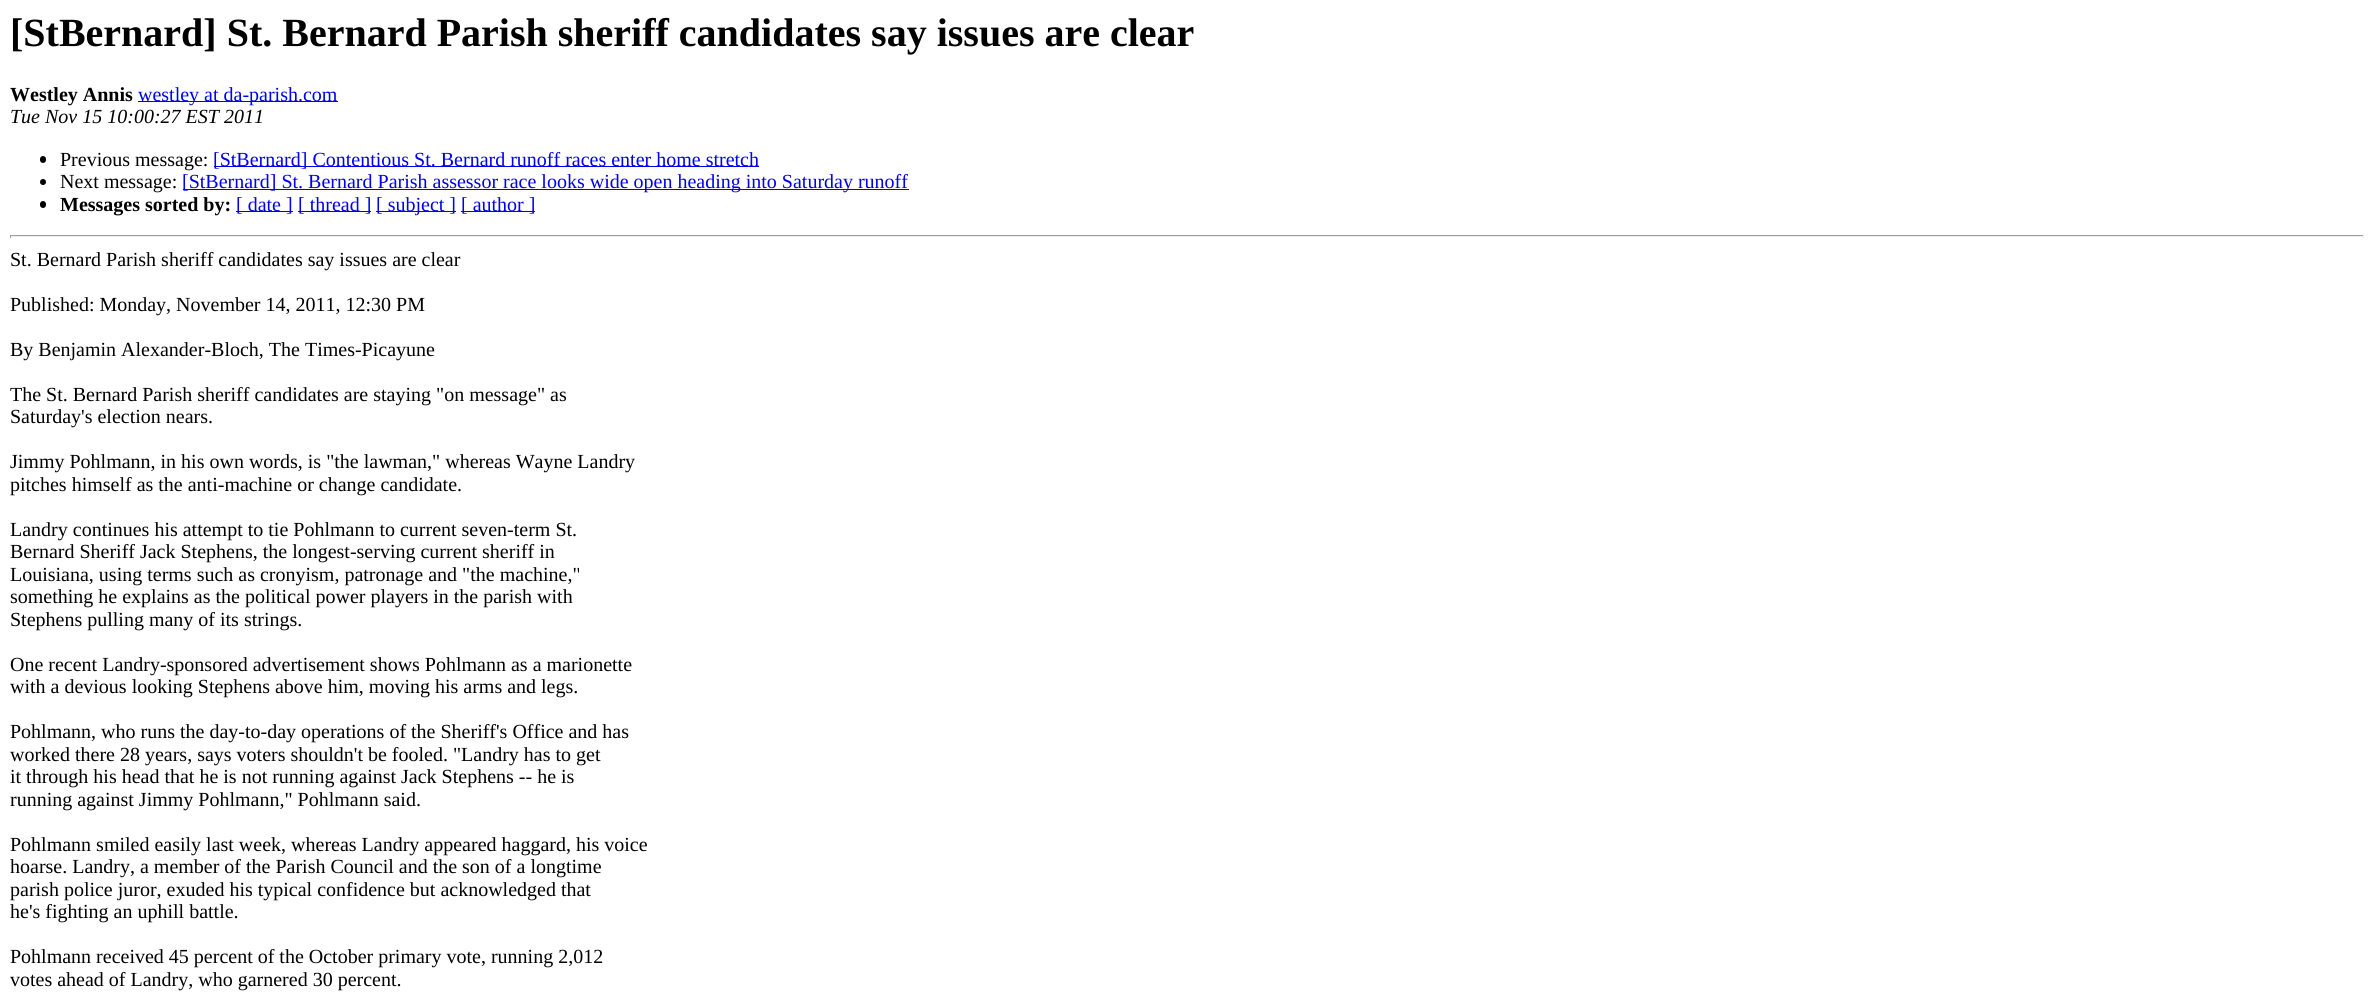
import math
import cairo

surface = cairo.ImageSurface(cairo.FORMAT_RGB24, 2373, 999)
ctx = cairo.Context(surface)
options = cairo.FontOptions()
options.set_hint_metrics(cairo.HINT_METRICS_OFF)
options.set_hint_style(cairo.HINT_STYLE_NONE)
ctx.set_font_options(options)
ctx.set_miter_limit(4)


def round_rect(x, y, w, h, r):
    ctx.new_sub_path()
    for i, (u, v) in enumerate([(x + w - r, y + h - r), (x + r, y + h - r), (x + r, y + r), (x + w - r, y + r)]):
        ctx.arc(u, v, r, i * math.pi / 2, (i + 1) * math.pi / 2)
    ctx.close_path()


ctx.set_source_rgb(1, 1, 1)
ctx.paint()
ctx.select_font_face("Liberation Serif", cairo.FONT_SLANT_NORMAL, cairo.FONT_WEIGHT_BOLD)
ctx.set_font_size(40)
ctx.set_source_rgb(0, 0, 0)
ctx.move_to(10, 46)
ctx.show_text("[StBernard] St. Bernard Parish sheriff candidates say issues are clear")
ctx.set_font_size(20)
ctx.move_to(10, 101)
ctx.show_text("Westley Annis")
ctx.set_source_rgb(0, 0, 0.933)
ctx.rectangle(138, 101, 200, 1)
ctx.fill()
ctx.select_font_face("Liberation Serif")
ctx.move_to(138, 101)
ctx.show_text("westley at da-parish.com")
ctx.select_font_face("Liberation Serif", cairo.FONT_SLANT_ITALIC)
ctx.set_source_rgb(0, 0, 0)
ctx.move_to(10, 123)
ctx.show_text("Tue Nov 15 10:00:27 EST 2011")
round_rect(40, 156, 6, 7, 3)
ctx.fill()
ctx.select_font_face("Liberation Serif")
ctx.move_to(60, 166)
ctx.show_text("Previous message:")
ctx.set_source_rgb(0, 0, 0.933)
ctx.rectangle(214, 166, 545, 1)
ctx.fill()
ctx.move_to(213, 166)
ctx.show_text("[StBernard] Contentious St. Bernard runoff races enter home stretch")
ctx.set_source_rgb(0, 0, 0)
ctx.new_path()
ctx.arc(43, 182, 3, 0, 2 * math.pi)
ctx.fill()
ctx.move_to(60, 188)
ctx.show_text("Next message:")
ctx.set_source_rgb(0, 0, 0.933)
ctx.rectangle(183, 189, 726, 1)
ctx.fill()
ctx.move_to(182, 188)
ctx.show_text("[StBernard] St. Bernard Parish assessor race looks wide open heading into Saturday runoff")
ctx.set_source_rgb(0, 0, 0)
round_rect(40, 201, 6, 7, 3)
ctx.fill()
ctx.select_font_face("Liberation Serif", cairo.FONT_SLANT_NORMAL, cairo.FONT_WEIGHT_BOLD)
ctx.move_to(60, 211)
ctx.show_text("Messages sorted by:")
ctx.set_source_rgb(0, 0, 0.933)
ctx.rectangle(236, 211, 57, 1)
ctx.fill()
ctx.select_font_face("Liberation Serif")
ctx.move_to(236, 211)
ctx.show_text("[ date ]")
ctx.rectangle(298, 211, 73, 1)
ctx.fill()
ctx.move_to(298, 211)
ctx.show_text("[ thread ]")
ctx.rectangle(376, 211, 80, 1)
ctx.fill()
ctx.move_to(376, 211)
ctx.show_text("[ subject ]")
ctx.rectangle(461, 211, 74, 1)
ctx.fill()
ctx.move_to(461, 211)
ctx.show_text("[ author ]")
ctx.set_source_rgb(0.624, 0.624, 0.624)
ctx.rectangle(10, 235, 2354, 1)
ctx.fill()
ctx.set_source_rgb(0.933, 0.933, 0.933)
ctx.rectangle(2363, 235, 1, 3)
ctx.fill()
ctx.rectangle(10, 236, 2354, 1)
ctx.fill()
ctx.set_source_rgb(0.624, 0.624, 0.624)
ctx.rectangle(10, 235, 1, 3)
ctx.fill()
ctx.set_source_rgb(0, 0, 0)
ctx.move_to(10, 266)
ctx.show_text("St. Bernard Parish sheriff candidates say issues are clear")
ctx.move_to(10, 311)
ctx.show_text("Published: Monday, November 14, 2011, 12:30 PM")
ctx.move_to(10, 356)
ctx.show_text("By Benjamin Alexander-Bloch, The Times-Picayune")
ctx.move_to(10, 401)
ctx.show_text("The St. Bernard Parish sheriff candidates are staying \"on message\" as")
ctx.move_to(10, 423)
ctx.show_text("Saturday's election nears.")
ctx.move_to(10, 468)
ctx.show_text("Jimmy Pohlmann, in his own words, is \"the lawman,\" whereas Wayne Landry")
ctx.move_to(10, 491)
ctx.show_text("pitches himself as the anti-machine or change candidate.")
ctx.move_to(10, 536)
ctx.show_text("Landry continues his attempt to tie Pohlmann to current seven-term St.")
ctx.move_to(10, 558)
ctx.show_text("Bernard Sheriff Jack Stephens, the longest-serving current sheriff in")
ctx.move_to(10, 581)
ctx.show_text("Louisiana, using terms such as cronyism, patronage and \"the machine,\"")
ctx.move_to(10, 603)
ctx.show_text("something he explains as the political power players in the parish with")
ctx.move_to(10, 626)
ctx.show_text("Stephens pulling many of its strings.")
ctx.move_to(10, 671)
ctx.show_text("One recent Landry-sponsored advertisement shows Pohlmann as a marionette")
ctx.move_to(10, 693)
ctx.show_text("with a devious looking Stephens above him, moving his arms and legs.")
ctx.move_to(10, 738)
ctx.show_text("Pohlmann, who runs the day-to-day operations of the Sheriff's Office and has")
ctx.move_to(10, 761)
ctx.show_text("worked there 28 years, says voters shouldn't be fooled. \"Landry has to get")
ctx.move_to(10, 783)
ctx.show_text("it through his head that he is not running against Jack Stephens -- he is")
ctx.move_to(10, 806)
ctx.show_text("running against Jimmy Pohlmann,\" Pohlmann said.")
ctx.move_to(10, 851)
ctx.show_text("Pohlmann smiled easily last week, whereas Landry appeared haggard, his voice")
ctx.move_to(10, 873)
ctx.show_text("hoarse. Landry, a member of the Parish Council and the son of a longtime")
ctx.move_to(10, 896)
ctx.show_text("parish police juror, exuded his typical confidence but acknowledged that")
ctx.move_to(10, 918)
ctx.show_text("he's fighting an uphill battle.")
ctx.move_to(10, 963)
ctx.show_text("Pohlmann received 45 percent of the October primary vote, running 2,012")
ctx.move_to(10, 986)
ctx.show_text("votes ahead of Landry, who garnered 30 percent.")
surface.write_to_png("page.png")
